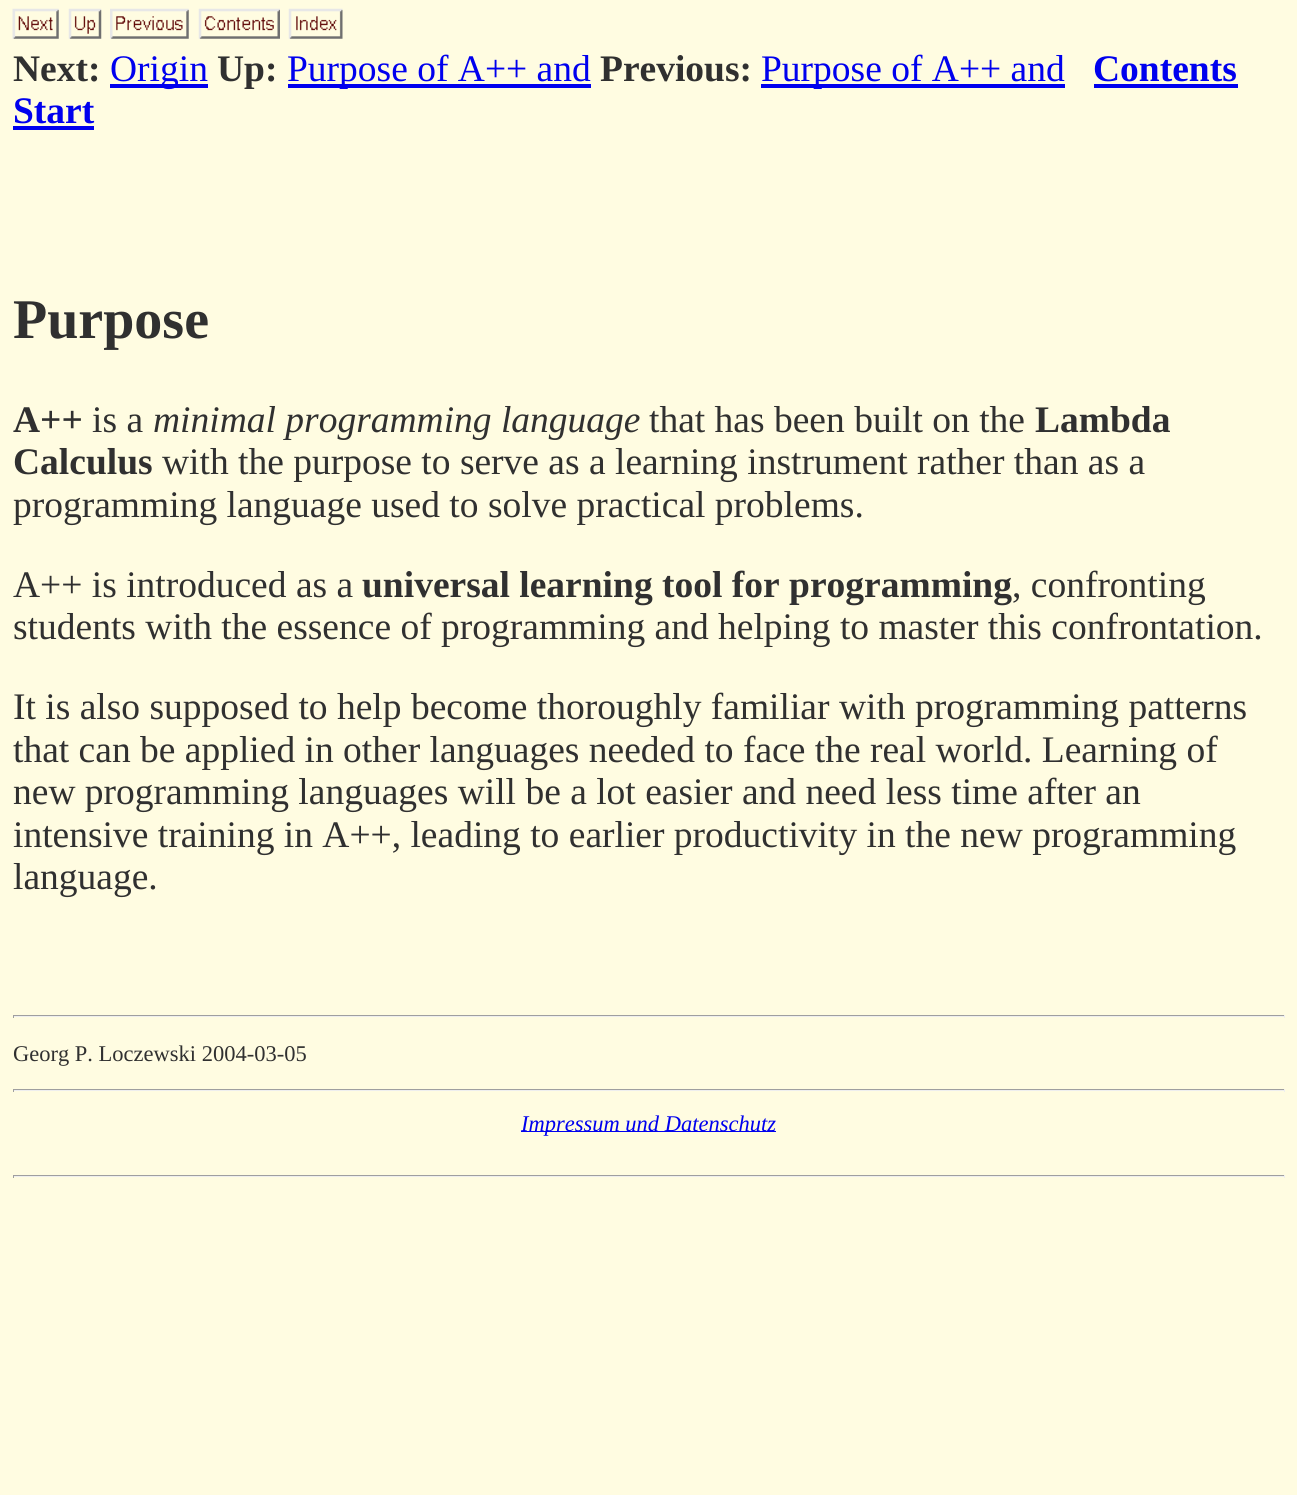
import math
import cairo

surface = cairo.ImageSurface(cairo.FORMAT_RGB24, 1297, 1495)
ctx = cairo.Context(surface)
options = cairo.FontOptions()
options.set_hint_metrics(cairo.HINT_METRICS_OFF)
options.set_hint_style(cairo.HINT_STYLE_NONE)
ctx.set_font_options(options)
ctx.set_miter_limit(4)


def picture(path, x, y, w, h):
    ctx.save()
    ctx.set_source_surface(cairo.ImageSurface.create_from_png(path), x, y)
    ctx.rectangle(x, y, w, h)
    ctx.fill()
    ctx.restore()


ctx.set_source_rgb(1, 0.988, 0.882)
ctx.paint()
picture("img1.png", 12, 8, 47, 31)
picture("img2.png", 68, 8, 34, 31)
picture("img3.png", 110, 8, 79, 31)
picture("img4.png", 198, 8, 82, 31)
picture("img5.png", 288, 8, 55, 31)
ctx.select_font_face("Liberation Serif", cairo.FONT_SLANT_NORMAL, cairo.FONT_WEIGHT_BOLD)
ctx.set_font_size(37.5)
ctx.set_source_rgb(0.188, 0.188, 0.188)
ctx.move_to(13, 81)
ctx.show_text("Next:")
ctx.set_source_rgb(0, 0, 0.933)
ctx.rectangle(110, 84, 98, 4)
ctx.fill()
ctx.select_font_face("Liberation Serif")
ctx.move_to(110, 81)
ctx.show_text("Origin")
ctx.select_font_face("Liberation Serif", cairo.FONT_SLANT_NORMAL, cairo.FONT_WEIGHT_BOLD)
ctx.set_source_rgb(0.188, 0.188, 0.188)
ctx.move_to(217, 81)
ctx.show_text("Up:")
ctx.set_source_rgb(0, 0, 0.933)
ctx.rectangle(288, 84, 303, 4)
ctx.fill()
ctx.select_font_face("Liberation Serif")
ctx.move_to(287, 81)
ctx.show_text("Purpose of A++ and")
ctx.select_font_face("Liberation Serif", cairo.FONT_SLANT_NORMAL, cairo.FONT_WEIGHT_BOLD)
ctx.set_source_rgb(0.188, 0.188, 0.188)
ctx.move_to(600, 81)
ctx.show_text("Previous:")
ctx.set_source_rgb(0, 0, 0.933)
ctx.rectangle(761, 84, 304, 4)
ctx.fill()
ctx.select_font_face("Liberation Serif")
ctx.move_to(761, 81)
ctx.show_text("Purpose of A++ and")
ctx.select_font_face("Liberation Serif", cairo.FONT_SLANT_NORMAL, cairo.FONT_WEIGHT_BOLD)
ctx.move_to(1093, 81)
ctx.show_text("Contents")
ctx.rectangle(1094, 84, 144, 4)
ctx.fill()
ctx.move_to(13, 123)
ctx.show_text("Start")
ctx.rectangle(13, 126, 81, 4)
ctx.fill()
ctx.set_font_size(56)
ctx.set_source_rgb(0.188, 0.188, 0.188)
ctx.move_to(13, 338)
ctx.show_text("Purpose")
ctx.set_font_size(37.5)
ctx.move_to(13, 432)
ctx.show_text("A++")
ctx.select_font_face("Liberation Serif")
ctx.move_to(92, 432)
ctx.show_text("is a")
ctx.select_font_face("Liberation Serif", cairo.FONT_SLANT_ITALIC)
ctx.move_to(153, 432)
ctx.show_text("minimal programming language")
ctx.select_font_face("Liberation Serif")
ctx.move_to(649, 432)
ctx.show_text("that has been built on the")
ctx.select_font_face("Liberation Serif", cairo.FONT_SLANT_NORMAL, cairo.FONT_WEIGHT_BOLD)
ctx.move_to(1035, 432)
ctx.show_text("Lambda")
ctx.move_to(13, 474)
ctx.show_text("Calculus")
ctx.select_font_face("Liberation Serif")
ctx.move_to(162, 474)
ctx.show_text("with the purpose to serve as a learning instrument rather than as a")
ctx.move_to(13, 517)
ctx.show_text("programming language used to solve practical problems.")
ctx.move_to(13, 597)
ctx.show_text("A++ is introduced as a")
ctx.select_font_face("Liberation Serif", cairo.FONT_SLANT_NORMAL, cairo.FONT_WEIGHT_BOLD)
ctx.move_to(362, 597)
ctx.show_text("universal learning tool for programming")
ctx.select_font_face("Liberation Serif")
ctx.move_to(1012, 597)
ctx.show_text(", confronting")
ctx.move_to(13, 639)
ctx.show_text("students with the essence of programming and helping to master this confrontation.")
ctx.move_to(13, 719)
ctx.show_text("It is also supposed to help become thoroughly familiar with programming patterns")
ctx.move_to(13, 762)
ctx.show_text("that can be applied in other languages needed to face the real world. Learning of")
ctx.move_to(13, 804)
ctx.show_text("new programming languages will be a lot easier and need less time after an")
ctx.move_to(13, 847)
ctx.show_text("intensive training in A++, leading to earlier productivity in the new programming")
ctx.move_to(13, 889)
ctx.show_text("language.")
ctx.set_source_rgb(0.624, 0.624, 0.624)
ctx.rectangle(13, 1015, 1272, 1)
ctx.fill()
ctx.set_source_rgb(0.933, 0.933, 0.933)
ctx.rectangle(1284, 1015, 1, 3)
ctx.fill()
ctx.rectangle(13, 1016, 1272, 1)
ctx.fill()
ctx.set_source_rgb(0.624, 0.624, 0.624)
ctx.rectangle(13, 1015, 1, 3)
ctx.fill()
ctx.set_font_size(22.5)
ctx.set_source_rgb(0.188, 0.188, 0.188)
ctx.move_to(13, 1061)
ctx.show_text("Georg P. Loczewski 2004-03-05")
ctx.set_source_rgb(0.624, 0.624, 0.624)
ctx.rectangle(13, 1089, 1272, 1)
ctx.fill()
ctx.set_source_rgb(0.933, 0.933, 0.933)
ctx.rectangle(1284, 1089, 1, 3)
ctx.fill()
ctx.rectangle(13, 1090, 1272, 1)
ctx.fill()
ctx.set_source_rgb(0.624, 0.624, 0.624)
ctx.rectangle(13, 1089, 1, 3)
ctx.fill()
ctx.set_source_rgb(0, 0, 0.933)
ctx.rectangle(521, 1131, 255, 1)
ctx.fill()
ctx.select_font_face("Liberation Serif", cairo.FONT_SLANT_ITALIC)
ctx.move_to(521, 1131)
ctx.show_text("Impressum und Datenschutz")
ctx.set_source_rgb(0.624, 0.624, 0.624)
ctx.rectangle(13, 1175, 1272, 1)
ctx.fill()
ctx.set_source_rgb(0.933, 0.933, 0.933)
ctx.rectangle(1284, 1175, 1, 3)
ctx.fill()
ctx.rectangle(13, 1176, 1272, 1)
ctx.fill()
ctx.set_source_rgb(0.624, 0.624, 0.624)
ctx.rectangle(13, 1175, 1, 3)
ctx.fill()
surface.write_to_png("page.png")
